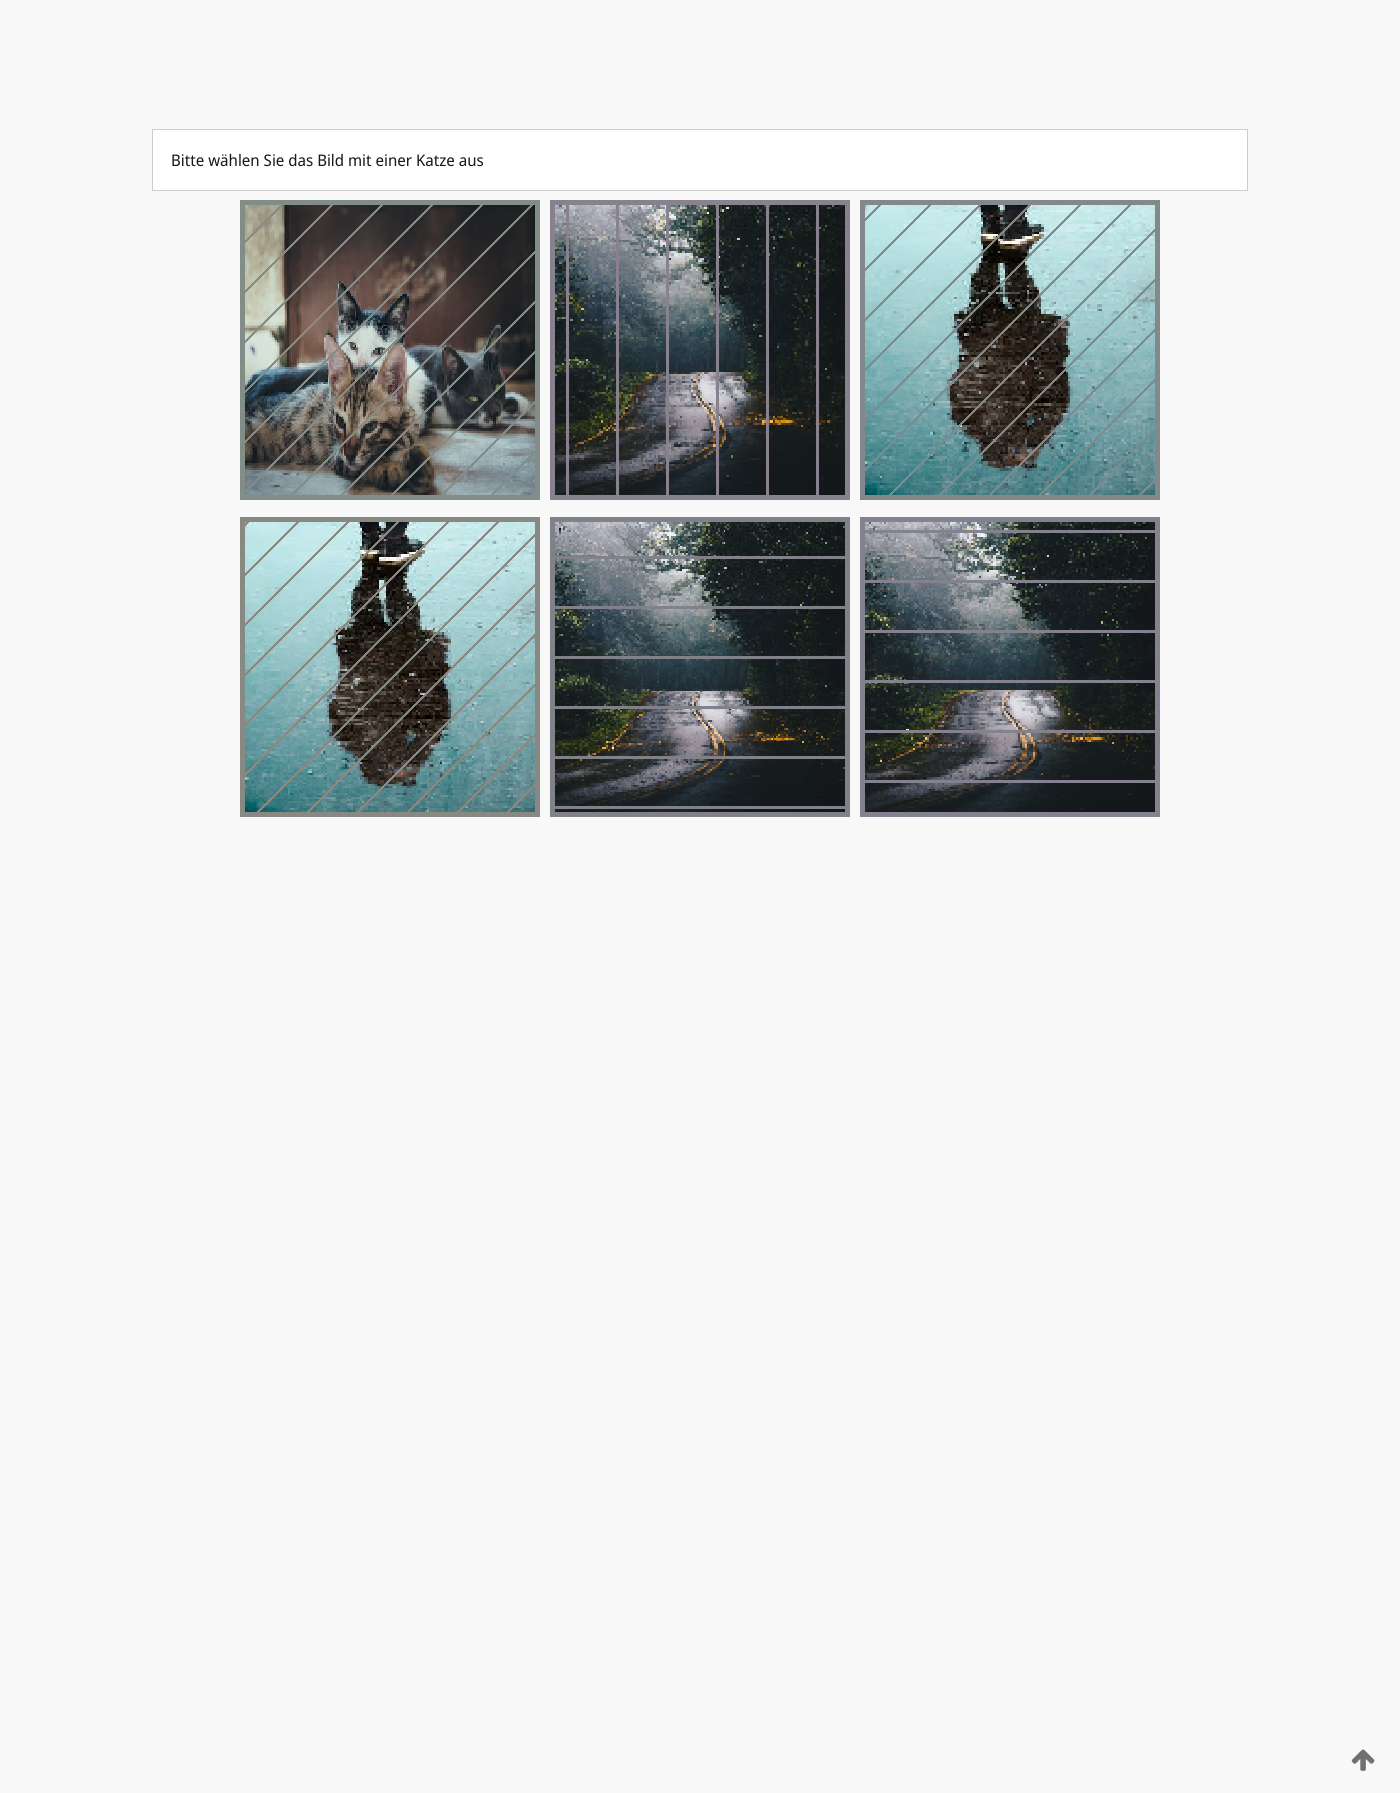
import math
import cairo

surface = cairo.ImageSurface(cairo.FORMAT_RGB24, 1400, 1793)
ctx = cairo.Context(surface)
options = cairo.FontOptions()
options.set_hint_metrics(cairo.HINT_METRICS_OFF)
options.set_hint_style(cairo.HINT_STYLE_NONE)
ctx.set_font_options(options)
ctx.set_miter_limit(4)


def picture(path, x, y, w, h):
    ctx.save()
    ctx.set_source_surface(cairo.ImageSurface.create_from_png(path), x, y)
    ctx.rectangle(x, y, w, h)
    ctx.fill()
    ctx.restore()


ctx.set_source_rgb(0.969, 0.969, 0.969)
ctx.paint()
ctx.set_source_rgb(1, 1, 1)
ctx.rectangle(152.5, 129.5, 1095, 61)
ctx.fill_preserve()
ctx.set_source_rgb(0.8, 0.8, 0.8)
ctx.set_line_width(1)
ctx.stroke()
ctx.select_font_face("Noto Sans Display")
ctx.set_font_size(16)
ctx.set_source_rgb(0.102, 0.102, 0.102)
ctx.move_to(171, 166)
ctx.show_text("Bitte wählen Sie das Bild mit einer Katze aus")
picture("img1.png", 240, 200, 300, 300)
picture("img2.png", 550, 200, 300, 300)
picture("img3.png", 860, 200, 300, 300)
picture("img4.png", 240, 517, 300, 300)
picture("img5.png", 550, 517, 300, 300)
picture("img6.png", 860, 517, 300, 300)
picture("img7.png", 1351, 1749, 24, 22)
surface.write_to_png("page.png")
